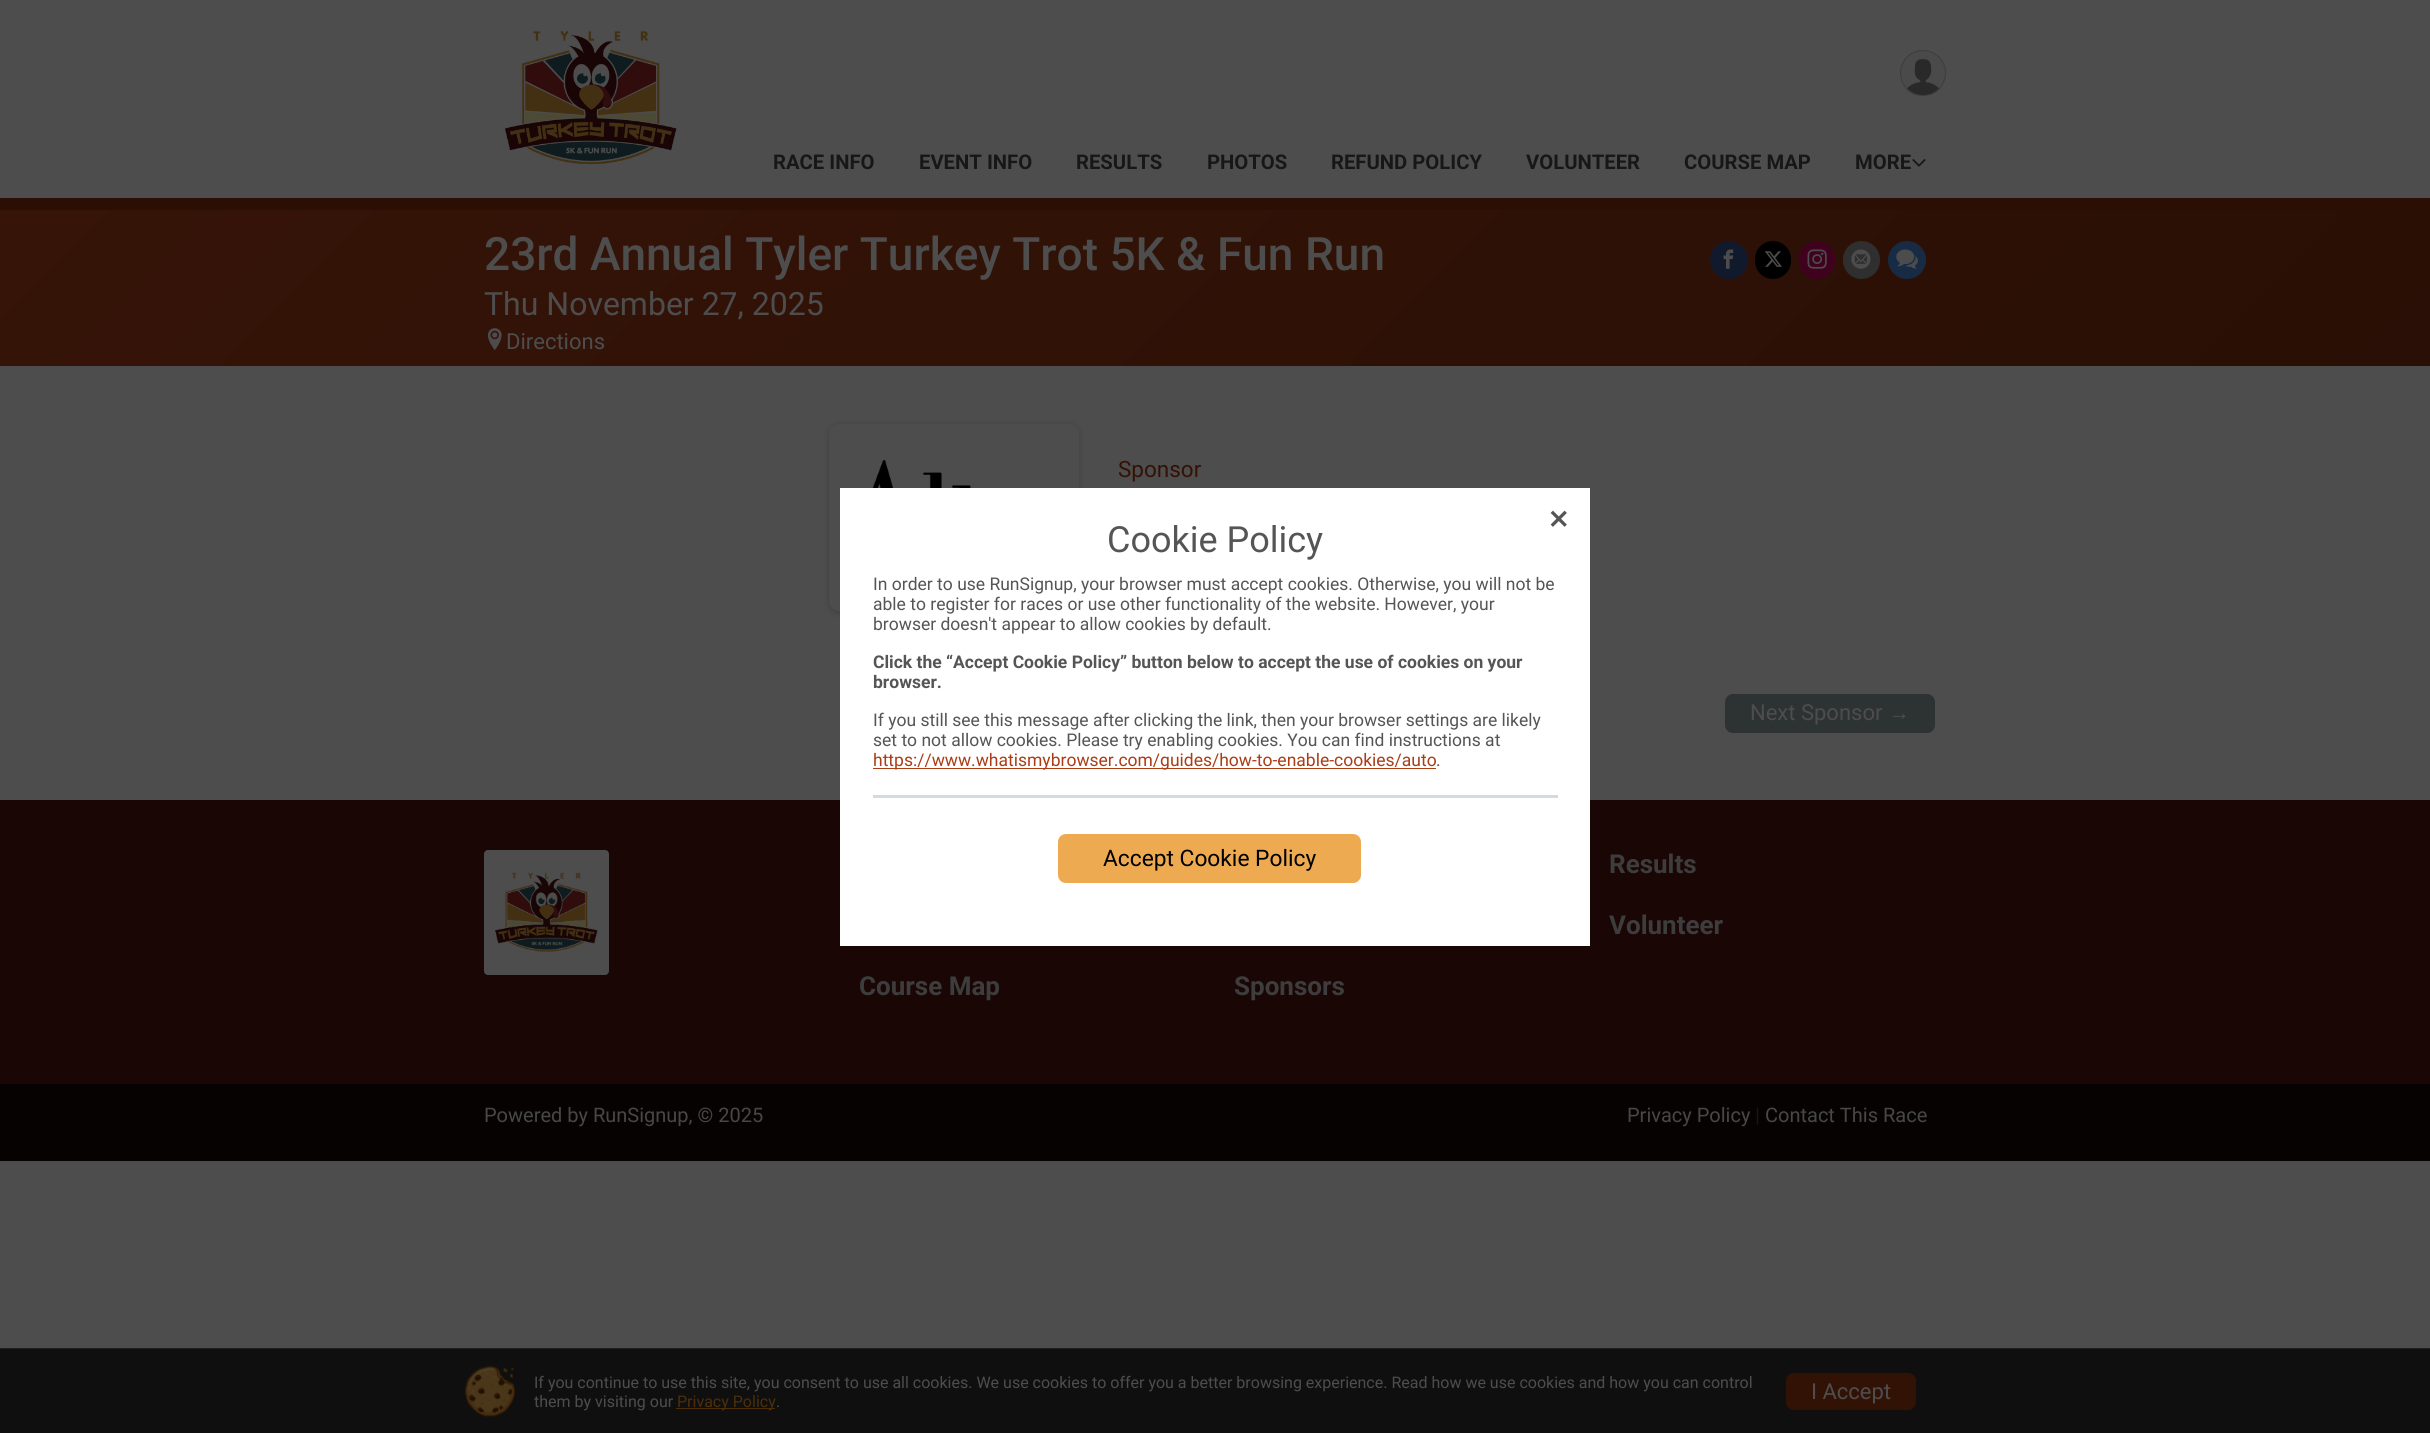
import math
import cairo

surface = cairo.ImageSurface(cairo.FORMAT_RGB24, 2430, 1433)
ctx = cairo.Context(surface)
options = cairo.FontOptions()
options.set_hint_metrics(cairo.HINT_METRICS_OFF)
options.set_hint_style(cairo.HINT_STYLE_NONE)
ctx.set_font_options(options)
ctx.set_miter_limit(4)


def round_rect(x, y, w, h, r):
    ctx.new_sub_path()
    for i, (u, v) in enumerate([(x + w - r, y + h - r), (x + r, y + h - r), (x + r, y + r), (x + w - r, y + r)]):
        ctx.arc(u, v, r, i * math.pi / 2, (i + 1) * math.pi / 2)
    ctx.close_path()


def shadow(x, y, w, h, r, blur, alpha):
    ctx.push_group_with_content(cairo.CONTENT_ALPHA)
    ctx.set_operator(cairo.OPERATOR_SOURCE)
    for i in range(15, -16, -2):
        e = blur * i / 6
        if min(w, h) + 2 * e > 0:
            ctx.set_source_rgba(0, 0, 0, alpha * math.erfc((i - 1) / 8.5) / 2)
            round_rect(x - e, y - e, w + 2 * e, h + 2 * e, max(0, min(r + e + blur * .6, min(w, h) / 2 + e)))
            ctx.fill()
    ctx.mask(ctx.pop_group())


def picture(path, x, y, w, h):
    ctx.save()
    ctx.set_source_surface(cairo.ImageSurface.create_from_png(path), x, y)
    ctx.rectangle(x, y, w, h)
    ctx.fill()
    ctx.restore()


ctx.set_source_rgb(0.302, 0.302, 0.302)
ctx.paint()
picture("img1.png", 505, 30, 172, 135)
picture("img2.png", 1901, 51, 44, 44)
ctx.arc(1923, 73, 22.5, 0, 2 * math.pi)
ctx.set_source_rgb(0.239, 0.239, 0.239)
ctx.set_line_width(1)
ctx.stroke()
ctx.select_font_face("Roboto", cairo.FONT_SLANT_NORMAL, cairo.FONT_WEIGHT_BOLD)
ctx.set_font_size(20.25)
ctx.set_source_rgb(0.09, 0.09, 0.09)
ctx.move_to(773, 169)
ctx.show_text("RACE INFO")
ctx.move_to(919, 169)
ctx.show_text("EVENT INFO")
ctx.move_to(1076, 169)
ctx.show_text("RESULTS")
ctx.move_to(1207, 169)
ctx.show_text("PHOTOS")
ctx.move_to(1331, 169)
ctx.show_text("REFUND POLICY")
ctx.move_to(1526, 169)
ctx.show_text("VOLUNTEER")
ctx.move_to(1684, 169)
ctx.show_text("COURSE MAP")
ctx.move_to(1855, 169)
ctx.show_text("MORE")
picture("img3.png", 1912, 159, 14, 8)
gradient = cairo.LinearGradient(1862, 935, 568, -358)
gradient.add_color_stop_rgba(0, 0.161, 0.059, 0.02, 1)
gradient.add_color_stop_rgba(1, 0.212, 0.078, 0.031, 1)
ctx.set_source(gradient)
ctx.rectangle(0, 210, 2430, 156)
ctx.fill()
ctx.set_source_rgb(0.169, 0.059, 0.02)
ctx.rectangle(0, 198, 2430, 12)
ctx.fill()
ctx.select_font_face("Roboto Medium")
ctx.set_font_size(46)
ctx.set_source_rgb(0.302, 0.302, 0.302)
ctx.move_to(484, 270)
ctx.show_text("23rd Annual Tyler Turkey Trot 5K & Fun Run")
ctx.select_font_face("Roboto")
ctx.set_font_size(32)
ctx.move_to(484, 315)
ctx.show_text("Thu November 27, 2025")
picture("img4.png", 487, 328, 15, 22)
ctx.set_font_size(22)
ctx.move_to(506, 349)
ctx.show_text("Directions")
ctx.set_source_rgb(0.067, 0.098, 0.176)
ctx.new_path()
ctx.arc(1729, 260, 19, 0, 2 * math.pi)
ctx.fill()
picture("img5.png", 1723, 249, 11, 20)
ctx.set_source_rgb(0, 0, 0)
round_rect(1755, 241, 36, 38, 18)
ctx.fill()
picture("img6.png", 1764, 251, 18, 16)
ctx.set_source_rgb(0.251, 0.004, 0.122)
round_rect(1799, 241, 36, 38, 18)
ctx.fill()
picture("img7.png", 1807, 249, 20, 20)
ctx.set_source_rgb(0.184, 0.184, 0.184)
round_rect(1843, 241, 37, 38, 18.5)
ctx.fill()
picture("img8.png", 1851, 249, 20, 20)
ctx.set_source_rgb(0.09, 0.173, 0.267)
ctx.arc(1907, 260, 19, 0, 2 * math.pi)
ctx.fill()
picture("img9.png", 1896, 249, 22, 20)
ctx.set_source_rgb(0, 0, 0)
shadow(829, 425, 250, 188, 10, 3, 0.2)
ctx.set_source_rgb(0.302, 0.302, 0.302)
round_rect(829, 424, 250, 187, 10)
ctx.fill()
picture("img10.png", 872, 460, 99, 28)
ctx.set_font_size(22.5)
ctx.set_source_rgb(0.2, 0.071, 0.027)
ctx.move_to(1118, 477)
ctx.show_text("Sponsor")
ctx.set_source_rgb(0.176, 0.196, 0.196)
round_rect(1725, 694, 210, 39, 8)
ctx.fill()
ctx.set_font_size(22)
ctx.set_source_rgb(0.302, 0.302, 0.302)
ctx.move_to(1750, 720)
ctx.show_text("Next Sponsor")
ctx.select_font_face("Liberation Sans")
ctx.move_to(1888, 720)
ctx.show_text("→")
ctx.set_source_rgb(0.031, 0.008, 0.008)
ctx.rectangle(0, 1084, 2430, 77)
ctx.fill()
ctx.set_source_rgb(0.098, 0.024, 0.02)
ctx.rectangle(0, 800, 2430, 284)
ctx.fill()
ctx.set_source_rgb(0.302, 0.302, 0.302)
round_rect(484, 850, 125, 125, 4)
ctx.fill()
picture("img11.png", 495, 872, 103, 80)
ctx.select_font_face("Roboto", cairo.FONT_SLANT_NORMAL, cairo.FONT_WEIGHT_BOLD)
ctx.set_font_size(26)
ctx.set_source_rgb(0.239, 0.239, 0.239)
ctx.move_to(1609, 873)
ctx.show_text("Results")
ctx.move_to(1609, 934)
ctx.show_text("Volunteer")
ctx.move_to(859, 995)
ctx.show_text("Course Map")
ctx.move_to(1234, 995)
ctx.show_text("Sponsors")
ctx.select_font_face("Roboto")
ctx.set_font_size(20)
ctx.set_source_rgb(0.278, 0.278, 0.278)
ctx.move_to(484, 1122)
ctx.show_text("Powered by RunSignup, © 2025")
ctx.move_to(1627, 1122)
ctx.show_text("Privacy Policy")
ctx.set_source_rgb(0.09, 0.09, 0.09)
ctx.move_to(1755, 1122)
ctx.show_text("|")
ctx.set_source_rgb(0.278, 0.278, 0.278)
ctx.move_to(1765, 1122)
ctx.show_text("Contact This Race")
ctx.rectangle(840.5, 488.5, 749, 457)
ctx.set_source_rgb(1, 1, 1)
ctx.stroke()
ctx.rectangle(841, 489, 748, 456)
ctx.fill()
picture("img12.png", 1550, 510, 17, 17)
ctx.set_font_size(36)
ctx.set_source_rgb(0.333, 0.333, 0.333)
ctx.move_to(1107, 552)
ctx.show_text("Cookie Policy")
ctx.set_font_size(17.5)
ctx.move_to(873, 590)
ctx.show_text("In order to use RunSignup, your browser must accept cookies. Otherwise, you will not be")
ctx.move_to(873, 610)
ctx.show_text("able to register for races or use other functionality of the website. However, your")
ctx.move_to(873, 630)
ctx.show_text("browser doesn't appear to allow cookies by default.")
ctx.select_font_face("Roboto", cairo.FONT_SLANT_NORMAL, cairo.FONT_WEIGHT_BOLD)
ctx.move_to(873, 668)
ctx.show_text("Click the “Accept Cookie Policy” button below to accept the use of cookies on your")
ctx.move_to(873, 688)
ctx.show_text("browser.")
ctx.select_font_face("Roboto")
ctx.move_to(873, 726)
ctx.show_text("If you still see this message after clicking the link, then your browser settings are likely")
ctx.move_to(873, 746)
ctx.show_text("set to not allow cookies. Please try enabling cookies. You can find instructions at")
ctx.set_source_rgb(0.667, 0.239, 0.086)
ctx.rectangle(873, 768, 563, 1)
ctx.fill()
ctx.move_to(873, 766)
ctx.show_text("https://www.whatismybrowser.com/guides/how-to-enable-cookies/auto")
ctx.set_source_rgb(0.333, 0.333, 0.333)
ctx.move_to(1436, 766)
ctx.show_text(".")
ctx.set_source_rgb(0.827, 0.859, 0.875)
ctx.rectangle(873, 795, 685, 3)
ctx.fill()
ctx.set_source_rgb(0.929, 0.667, 0.318)
round_rect(1058, 834, 303, 49, 8)
ctx.fill()
ctx.set_font_size(22.75)
ctx.set_source_rgb(0, 0, 0)
ctx.move_to(1103, 866)
ctx.show_text("Accept Cookie Policy")
ctx.set_source_rgb(0.059, 0.059, 0.059)
ctx.rectangle(0, 1349, 2430, 84)
ctx.fill()
ctx.set_source_rgb(0.122, 0.122, 0.122)
ctx.rectangle(0, 1348, 2430, 1)
ctx.fill()
picture("img13.png", 465, 1366, 50, 51)
ctx.set_font_size(16)
ctx.set_source_rgb(0.302, 0.302, 0.302)
ctx.move_to(534, 1388)
ctx.show_text("If you continue to use this site, you consent to use all cookies. We use cookies to offer you a better browsing experience. Read how we use cookies and how you can control")
ctx.move_to(534, 1407)
ctx.show_text("them by visiting our")
ctx.set_source_rgb(0.298, 0.18, 0.043)
ctx.rectangle(676, 1408, 99, 1)
ctx.fill()
ctx.move_to(677, 1407)
ctx.show_text("Privacy Policy")
ctx.set_source_rgb(0.302, 0.302, 0.302)
ctx.move_to(776, 1407)
ctx.show_text(".")
ctx.set_source_rgb(0.2, 0.071, 0.027)
round_rect(1786, 1373, 130, 37, 8)
ctx.fill()
ctx.set_font_size(22)
ctx.set_source_rgb(0.302, 0.302, 0.302)
ctx.move_to(1811, 1399)
ctx.show_text("I Accept")
surface.write_to_png("page.png")
